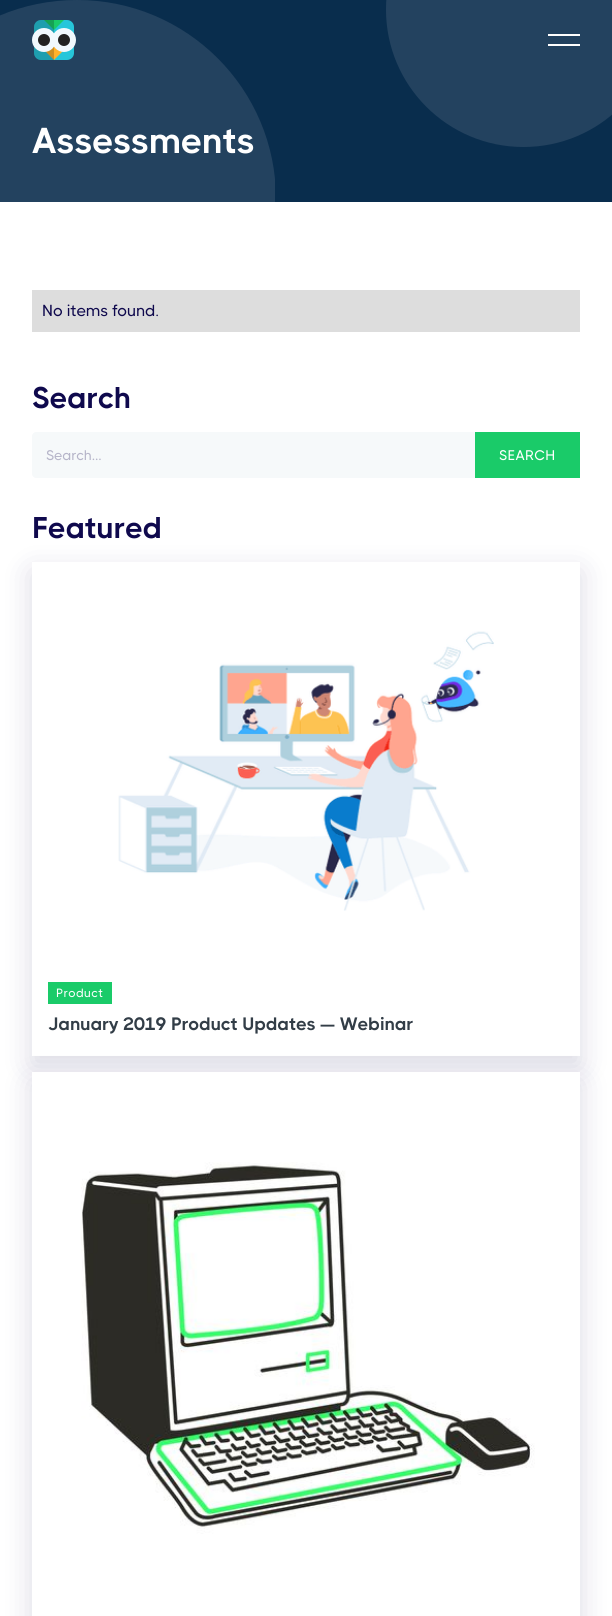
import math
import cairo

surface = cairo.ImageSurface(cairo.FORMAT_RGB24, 612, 1616)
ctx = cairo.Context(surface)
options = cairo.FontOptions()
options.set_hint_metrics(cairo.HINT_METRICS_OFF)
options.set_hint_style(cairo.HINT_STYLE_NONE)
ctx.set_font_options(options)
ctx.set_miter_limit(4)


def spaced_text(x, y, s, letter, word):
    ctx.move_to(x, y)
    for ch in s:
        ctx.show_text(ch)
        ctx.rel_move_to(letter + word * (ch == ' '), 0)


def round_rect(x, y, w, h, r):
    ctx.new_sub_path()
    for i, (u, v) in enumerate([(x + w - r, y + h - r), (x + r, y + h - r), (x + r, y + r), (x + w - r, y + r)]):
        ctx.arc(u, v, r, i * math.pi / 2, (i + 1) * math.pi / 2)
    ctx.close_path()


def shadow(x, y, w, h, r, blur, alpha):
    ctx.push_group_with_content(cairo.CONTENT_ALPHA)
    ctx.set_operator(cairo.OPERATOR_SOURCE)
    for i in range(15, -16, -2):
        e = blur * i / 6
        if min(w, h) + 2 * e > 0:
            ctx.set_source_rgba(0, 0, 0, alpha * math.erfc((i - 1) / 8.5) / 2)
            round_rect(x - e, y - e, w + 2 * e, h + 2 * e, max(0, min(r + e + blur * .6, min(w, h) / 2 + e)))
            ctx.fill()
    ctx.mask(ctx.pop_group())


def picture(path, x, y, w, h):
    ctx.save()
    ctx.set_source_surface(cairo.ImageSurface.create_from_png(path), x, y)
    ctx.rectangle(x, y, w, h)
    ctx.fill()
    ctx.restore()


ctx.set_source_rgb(1, 1, 1)
ctx.paint()
ctx.set_source_rgb(0.039, 0.176, 0.302)
ctx.rectangle(0, 0, 612, 202)
ctx.fill()
ctx.save()
ctx.rectangle(0, 0, 275, 202)
ctx.clip()
ctx.set_source_rgb(0.137, 0.259, 0.373)
ctx.arc(77, 199, 199, 0, 2 * math.pi)
ctx.fill()
ctx.restore()
picture("img1.png", 32, 20, 44, 40)
ctx.set_source_rgb(0.137, 0.259, 0.373)
ctx.arc(523.5, 9.5, 137.5, 0, 2 * math.pi)
ctx.fill()
ctx.set_source_rgb(1, 1, 1)
ctx.rectangle(548, 34, 32, 2)
ctx.fill()
ctx.rectangle(548, 44, 32, 2)
ctx.fill()
ctx.select_font_face("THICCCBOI", cairo.FONT_SLANT_NORMAL, cairo.FONT_WEIGHT_BOLD)
ctx.set_font_size(36)
ctx.move_to(32, 153)
ctx.show_text("Assessments")
ctx.set_source_rgb(0.867, 0.867, 0.867)
ctx.rectangle(32, 290, 548, 42)
ctx.fill()
ctx.select_font_face("THICCCBOI Medium")
ctx.set_font_size(16)
ctx.set_source_rgb(0.059, 0.039, 0.302)
ctx.move_to(42, 316)
ctx.show_text("No items found.")
ctx.select_font_face("THICCCBOI", cairo.FONT_SLANT_NORMAL, cairo.FONT_WEIGHT_BOLD)
ctx.set_font_size(30)
ctx.move_to(32, 408)
ctx.show_text("Search")
ctx.set_source_rgb(0.961, 0.973, 0.98)
ctx.new_path()
ctx.move_to(36, 432)
ctx.line_to(475, 432)
ctx.line_to(475, 478)
ctx.line_to(36, 478)
ctx.curve_to(34, 478, 32, 476, 32, 474)
ctx.line_to(32, 436)
ctx.curve_to(32, 434, 34, 432, 36, 432)
ctx.close_path()
ctx.fill()
ctx.select_font_face("THICCCBOI Medium")
ctx.set_font_size(14)
ctx.set_source_rgb(0.714, 0.71, 0.788)
ctx.move_to(46, 460)
ctx.show_text("Search…")
ctx.set_source_rgb(0.102, 0.796, 0.412)
ctx.rectangle(475, 432, 105, 46)
ctx.fill()
ctx.set_source_rgb(1, 1, 1)
spaced_text(499, 460, "SEARCH", 0.5, 0)
ctx.select_font_face("THICCCBOI", cairo.FONT_SLANT_NORMAL, cairo.FONT_WEIGHT_BOLD)
ctx.set_font_size(30)
ctx.set_source_rgb(0.059, 0.039, 0.302)
ctx.move_to(32, 538)
ctx.show_text("Featured")
ctx.save()
ctx.set_fill_rule(cairo.FILL_RULE_EVEN_ODD)
ctx.new_path()
ctx.move_to(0, 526)
ctx.line_to(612, 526)
ctx.line_to(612, 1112)
ctx.line_to(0, 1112)
ctx.close_path()
ctx.move_to(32, 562)
ctx.line_to(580, 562)
ctx.line_to(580, 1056)
ctx.line_to(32, 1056)
ctx.close_path()
ctx.clip()
ctx.set_source_rgb(0.059, 0.039, 0.302)
shadow(32, 572, 548, 494, 0, 15, 0.15)
ctx.restore()
picture("img2.png", 118, 631, 376, 280)
ctx.set_source_rgb(0.102, 0.796, 0.412)
ctx.rectangle(48, 982, 64, 22)
ctx.fill()
ctx.select_font_face("THICCCBOI Medium")
ctx.set_font_size(12)
ctx.set_source_rgb(1, 1, 1)
spaced_text(56, 997, "Product", 0.5, 0)
ctx.select_font_face("THICCCBOI", cairo.FONT_SLANT_NORMAL, cairo.FONT_WEIGHT_BOLD)
ctx.set_font_size(18)
ctx.set_source_rgb(0.196, 0.239, 0.278)
ctx.move_to(48, 1030)
ctx.show_text("January 2019 Product Updates — Webinar")
ctx.set_source_rgb(0.059, 0.039, 0.302)
shadow(32, 1082, 548, 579, 0, 15, 0.15)
ctx.set_source_rgb(1, 1, 1)
ctx.rectangle(32, 1072, 548, 544)
ctx.fill()
picture("img3.png", 81, 1162, 454, 372)
surface.write_to_png("page.png")
